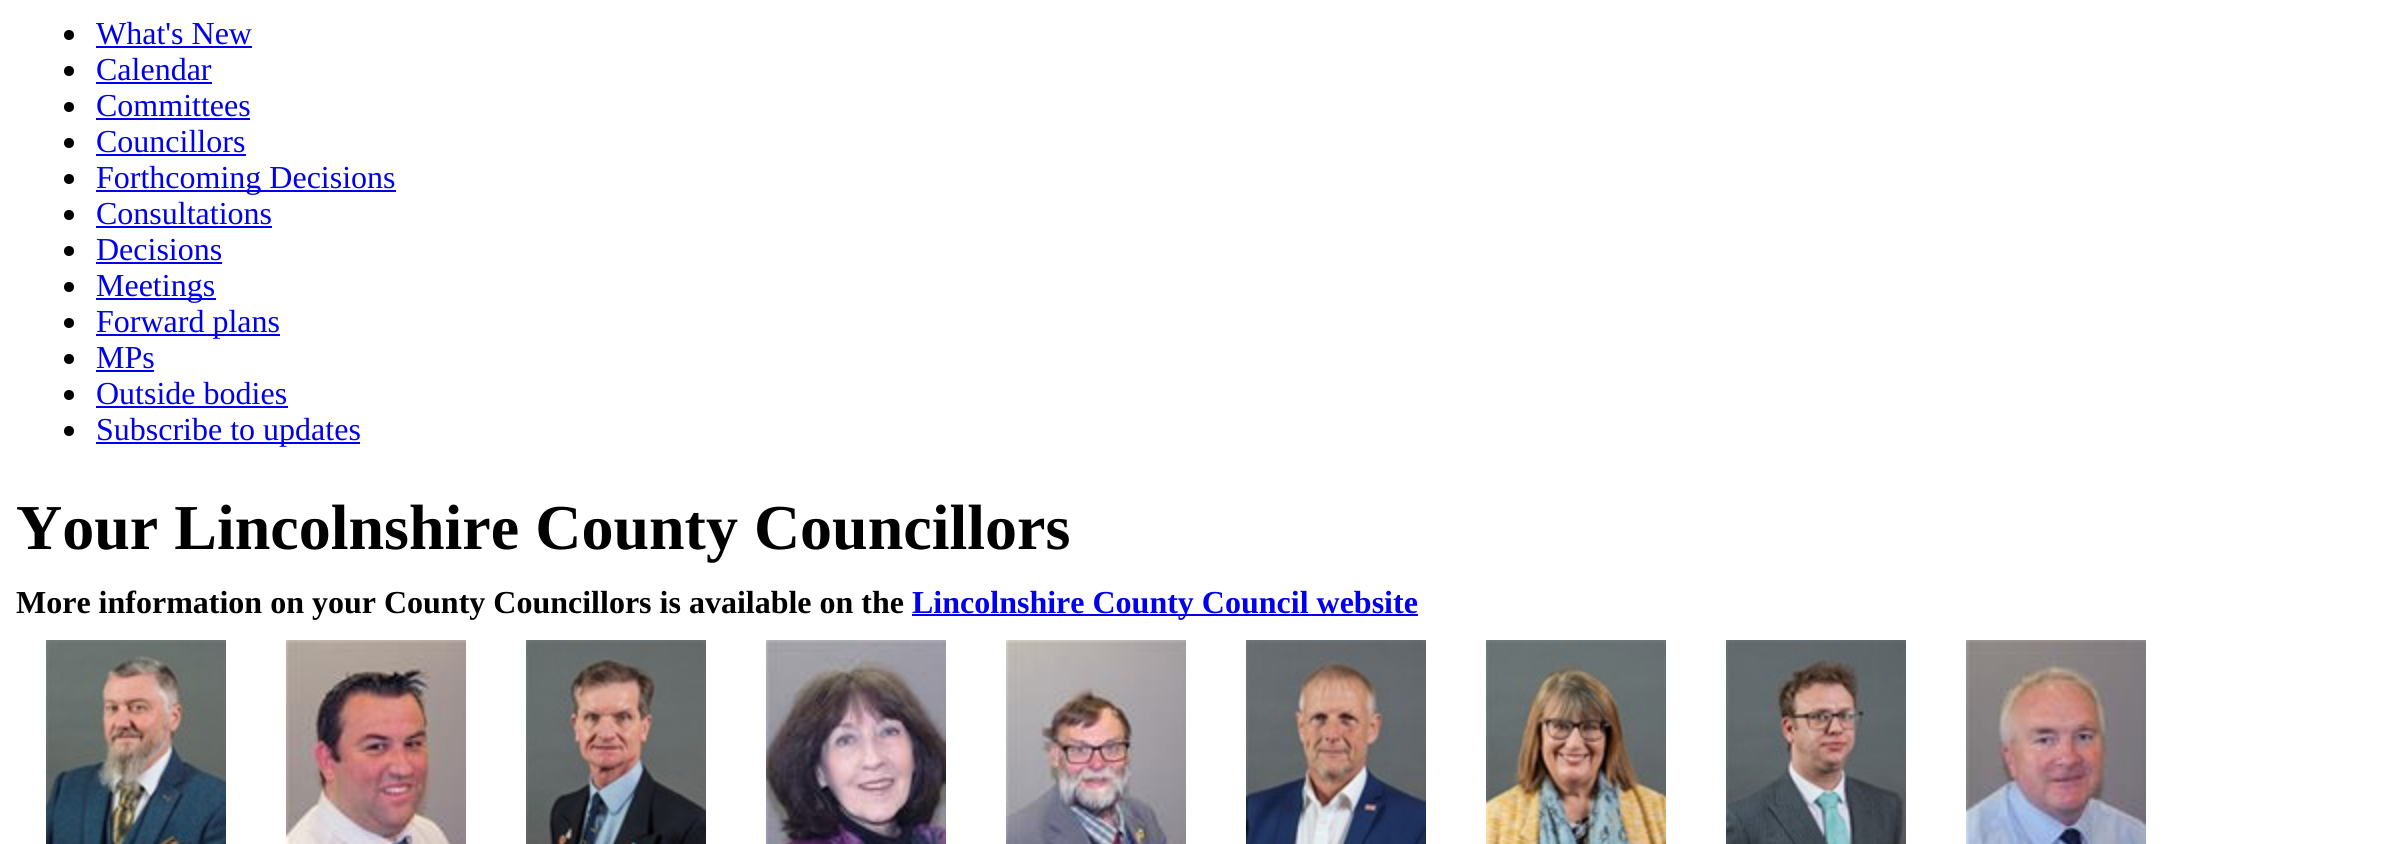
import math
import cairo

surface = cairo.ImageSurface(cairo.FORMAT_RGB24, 2398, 844)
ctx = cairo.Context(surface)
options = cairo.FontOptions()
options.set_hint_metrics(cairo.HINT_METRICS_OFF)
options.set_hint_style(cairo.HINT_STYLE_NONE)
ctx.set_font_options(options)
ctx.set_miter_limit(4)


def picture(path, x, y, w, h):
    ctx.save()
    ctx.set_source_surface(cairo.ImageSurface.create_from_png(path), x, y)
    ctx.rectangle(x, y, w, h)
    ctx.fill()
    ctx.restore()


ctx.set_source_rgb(1, 1, 1)
ctx.paint()
ctx.set_source_rgb(0, 0, 0)
ctx.arc(69, 35, 5, 0, 2 * math.pi)
ctx.fill()
ctx.select_font_face("Liberation Serif")
ctx.set_font_size(32)
ctx.set_source_rgb(0, 0, 0.933)
ctx.move_to(96, 44)
ctx.show_text("What's New")
ctx.rectangle(96, 46, 156, 2)
ctx.fill()
ctx.set_source_rgb(0, 0, 0)
ctx.arc(69, 71, 5, 0, 2 * math.pi)
ctx.fill()
ctx.set_source_rgb(0, 0, 0.933)
ctx.move_to(96, 80)
ctx.show_text("Calendar")
ctx.rectangle(96, 82, 116, 2)
ctx.fill()
ctx.set_source_rgb(0, 0, 0)
ctx.arc(69, 107, 5, 0, 2 * math.pi)
ctx.fill()
ctx.set_source_rgb(0, 0, 0.933)
ctx.move_to(96, 116)
ctx.show_text("Committees")
ctx.rectangle(96, 118, 154, 2)
ctx.fill()
ctx.set_source_rgb(0, 0, 0)
ctx.arc(69, 143, 5, 0, 2 * math.pi)
ctx.fill()
ctx.set_source_rgb(0, 0, 0.933)
ctx.move_to(96, 152)
ctx.show_text("Councillors")
ctx.rectangle(96, 154, 150, 2)
ctx.fill()
ctx.set_source_rgb(0, 0, 0)
ctx.arc(69, 179, 5, 0, 2 * math.pi)
ctx.fill()
ctx.set_source_rgb(0, 0, 0.933)
ctx.rectangle(96, 190, 300, 2)
ctx.fill()
ctx.move_to(96, 188)
ctx.show_text("Forthcoming Decisions")
ctx.set_source_rgb(0, 0, 0)
ctx.new_path()
ctx.arc(69, 215, 5, 0, 2 * math.pi)
ctx.fill()
ctx.set_source_rgb(0, 0, 0.933)
ctx.move_to(96, 224)
ctx.show_text("Consultations")
ctx.rectangle(96, 226, 176, 2)
ctx.fill()
ctx.set_source_rgb(0, 0, 0)
ctx.arc(69, 251, 5, 0, 2 * math.pi)
ctx.fill()
ctx.set_source_rgb(0, 0, 0.933)
ctx.move_to(96, 260)
ctx.show_text("Decisions")
ctx.rectangle(96, 262, 126, 2)
ctx.fill()
ctx.set_source_rgb(0, 0, 0)
ctx.arc(69, 287, 5, 0, 2 * math.pi)
ctx.fill()
ctx.set_source_rgb(0, 0, 0.933)
ctx.rectangle(96, 298, 120, 2)
ctx.fill()
ctx.move_to(96, 296)
ctx.show_text("Meetings")
ctx.set_source_rgb(0, 0, 0)
ctx.new_path()
ctx.arc(69, 323, 5, 0, 2 * math.pi)
ctx.fill()
ctx.set_source_rgb(0, 0, 0.933)
ctx.rectangle(96, 334, 184, 2)
ctx.fill()
ctx.move_to(96, 332)
ctx.show_text("Forward plans")
ctx.set_source_rgb(0, 0, 0)
ctx.new_path()
ctx.arc(69, 359, 5, 0, 2 * math.pi)
ctx.fill()
ctx.set_source_rgb(0, 0, 0.933)
ctx.move_to(96, 368)
ctx.show_text("MPs")
ctx.rectangle(96, 370, 58, 2)
ctx.fill()
ctx.set_source_rgb(0, 0, 0)
ctx.arc(69, 395, 5, 0, 2 * math.pi)
ctx.fill()
ctx.set_source_rgb(0, 0, 0.933)
ctx.move_to(96, 404)
ctx.show_text("Outside bodies")
ctx.rectangle(96, 406, 192, 2)
ctx.fill()
ctx.set_source_rgb(0, 0, 0)
ctx.arc(69, 431, 5, 0, 2 * math.pi)
ctx.fill()
ctx.set_source_rgb(0, 0, 0.933)
ctx.rectangle(96, 442, 264, 2)
ctx.fill()
ctx.move_to(96, 440)
ctx.show_text("Subscribe to updates")
ctx.select_font_face("Liberation Serif", cairo.FONT_SLANT_NORMAL, cairo.FONT_WEIGHT_BOLD)
ctx.set_font_size(64)
ctx.set_source_rgb(0, 0, 0)
ctx.move_to(16, 549)
ctx.show_text("Your Lincolnshire County Councillors")
ctx.set_font_size(32)
ctx.move_to(16, 613)
ctx.show_text("More information on your County Councillors is available on the")
ctx.set_source_rgb(0, 0, 0.933)
ctx.rectangle(912, 614, 506, 2)
ctx.fill()
ctx.move_to(912, 613)
ctx.show_text("Lincolnshire County Council website")
picture("img1.png", 46, 640, 180, 204)
picture("img2.png", 286, 640, 180, 204)
picture("img3.png", 526, 640, 180, 204)
picture("img4.png", 766, 640, 180, 204)
picture("img5.png", 1006, 640, 180, 204)
picture("img6.png", 1246, 640, 180, 204)
picture("img7.png", 1486, 640, 180, 204)
picture("img8.png", 1726, 640, 180, 204)
picture("img9.png", 1966, 640, 180, 204)
surface.write_to_png("page.png")
